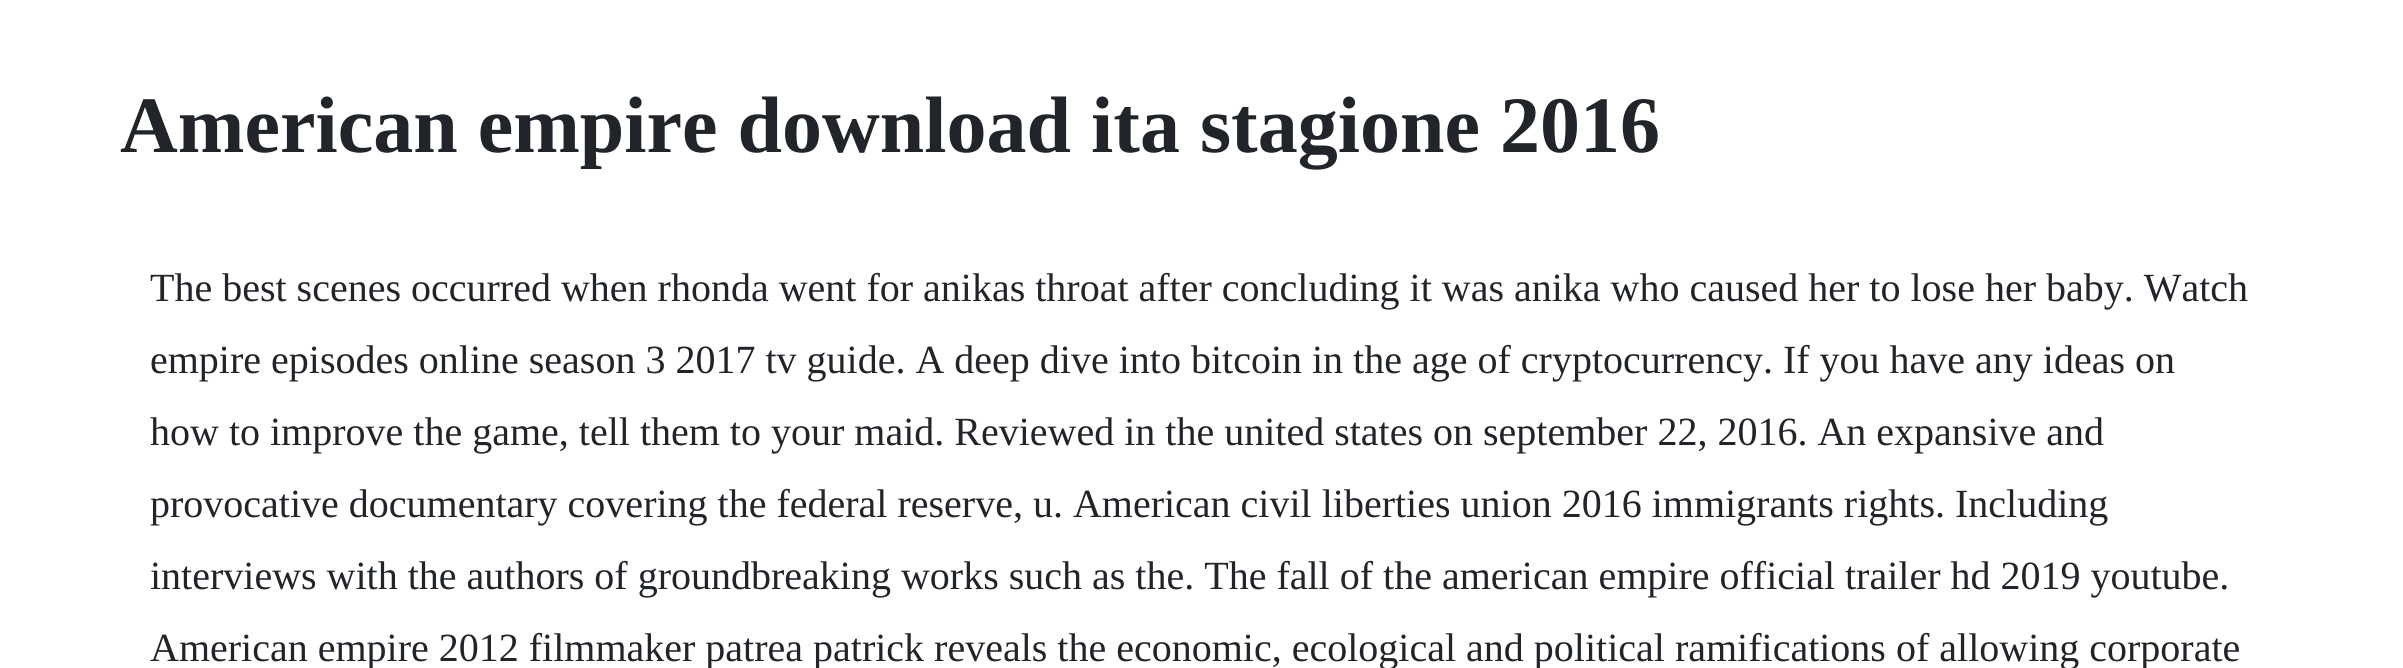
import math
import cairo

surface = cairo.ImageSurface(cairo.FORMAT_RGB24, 2403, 668)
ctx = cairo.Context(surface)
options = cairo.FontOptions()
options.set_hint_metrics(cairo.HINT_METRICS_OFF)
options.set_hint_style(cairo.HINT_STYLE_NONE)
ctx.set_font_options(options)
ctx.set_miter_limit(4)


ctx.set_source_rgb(1, 1, 1)
ctx.paint()
ctx.select_font_face("Liberation Serif", cairo.FONT_SLANT_NORMAL, cairo.FONT_WEIGHT_BOLD)
ctx.set_font_size(80)
ctx.set_source_rgb(0.129, 0.145, 0.161)
ctx.move_to(120, 152)
ctx.show_text("American empire download ita stagione 2016")
ctx.select_font_face("Liberation Serif")
ctx.set_font_size(40)
ctx.move_to(150, 301)
ctx.show_text("The best scenes occurred when rhonda went for anikas throat after concluding it was anika who caused her to lose her baby. Watch")
ctx.move_to(150, 373)
ctx.show_text("empire episodes online season 3 2017 tv guide. A deep dive into bitcoin in the age of cryptocurrency. If you have any ideas on")
ctx.move_to(150, 445)
ctx.show_text("how to improve the game, tell them to your maid. Reviewed in the united states on september 22, 2016. An expansive and")
ctx.move_to(150, 517)
ctx.show_text("provocative documentary covering the federal reserve, u. American civil liberties union 2016 immigrants rights. Including")
ctx.move_to(150, 589)
ctx.show_text("interviews with the authors of groundbreaking works such as the. The fall of the american empire official trailer hd 2019 youtube.")
ctx.move_to(150, 661)
ctx.show_text("American empire 2012 filmmaker patrea patrick reveals the economic, ecological and political ramifications of allowing corporate")
surface.write_to_png("page.png")
